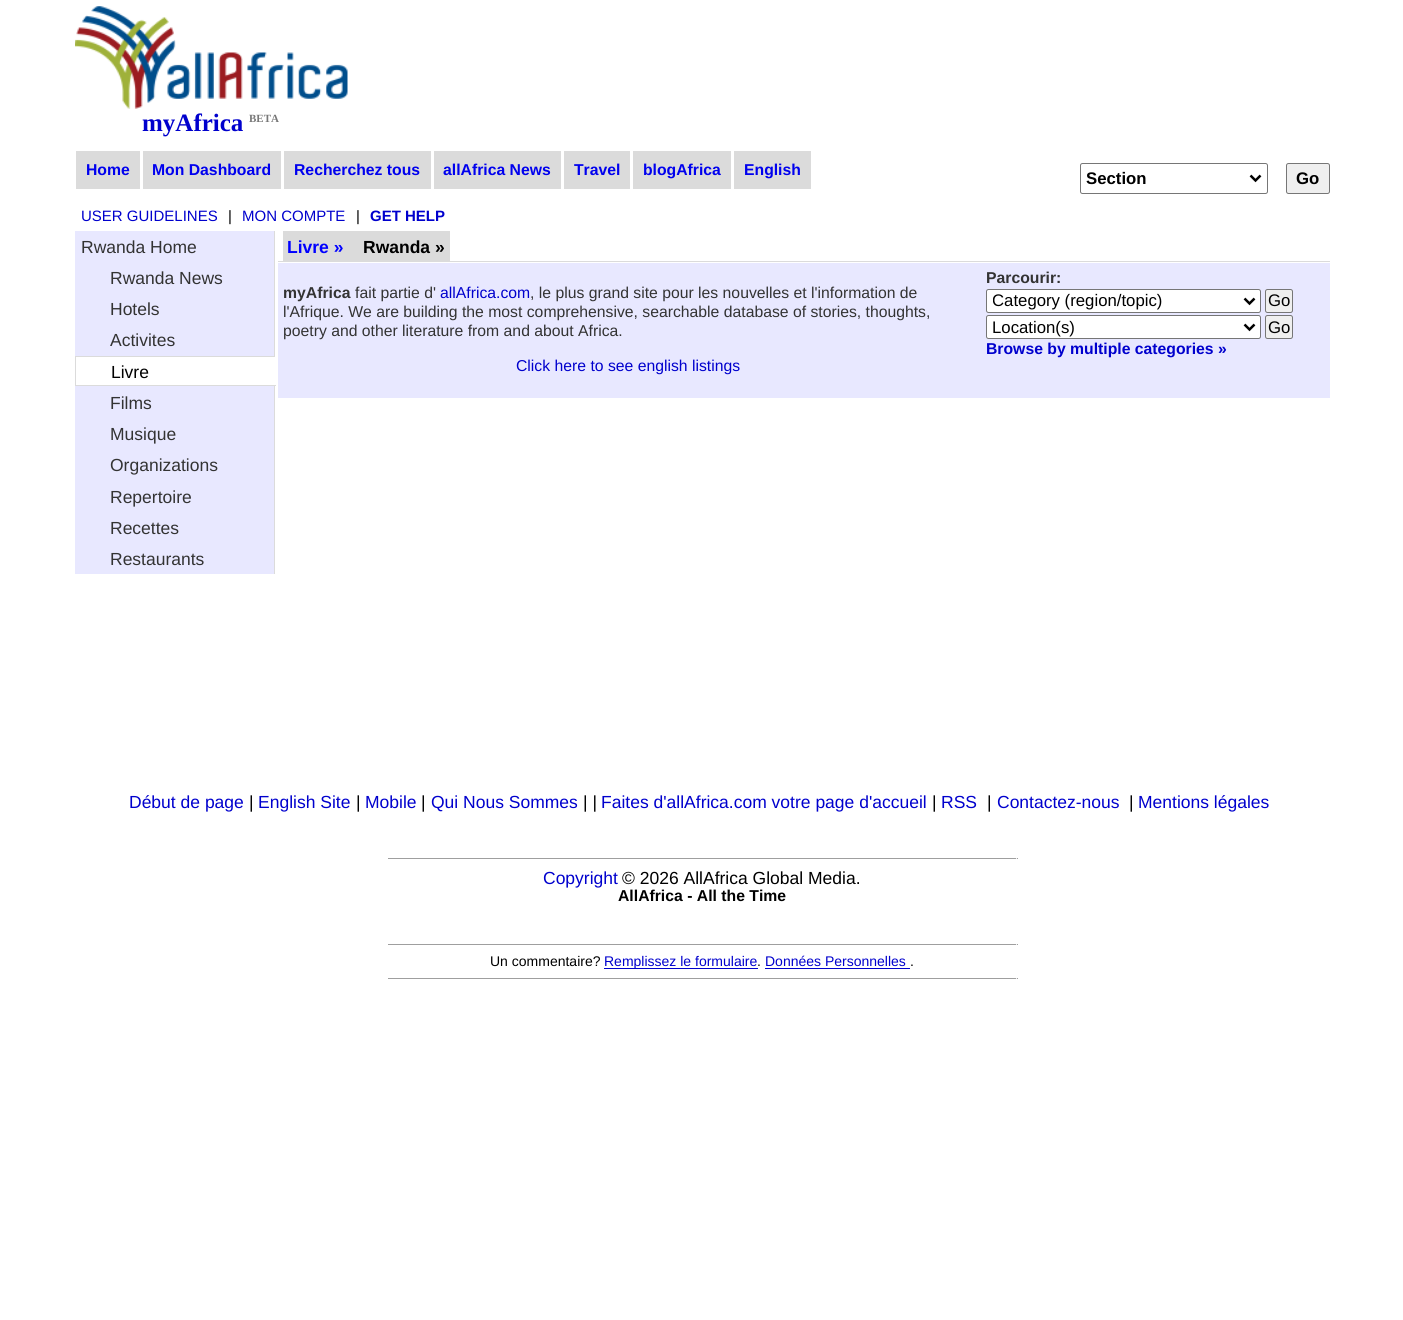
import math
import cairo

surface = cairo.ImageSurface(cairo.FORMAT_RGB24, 1403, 1320)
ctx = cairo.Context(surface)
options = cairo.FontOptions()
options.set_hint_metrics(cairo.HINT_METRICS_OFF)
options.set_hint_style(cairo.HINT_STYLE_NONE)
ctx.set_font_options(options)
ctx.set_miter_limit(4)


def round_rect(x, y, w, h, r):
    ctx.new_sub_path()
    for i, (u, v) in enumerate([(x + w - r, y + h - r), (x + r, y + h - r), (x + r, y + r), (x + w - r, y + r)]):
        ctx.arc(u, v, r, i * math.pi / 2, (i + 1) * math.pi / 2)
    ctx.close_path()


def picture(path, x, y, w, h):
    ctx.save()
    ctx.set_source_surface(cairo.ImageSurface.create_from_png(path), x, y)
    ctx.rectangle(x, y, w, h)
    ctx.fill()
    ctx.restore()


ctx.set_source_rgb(1, 1, 1)
ctx.paint()
picture("img1.png", 75, 6, 273, 103)
ctx.select_font_face("Liberation Serif", cairo.FONT_SLANT_NORMAL, cairo.FONT_WEIGHT_BOLD)
ctx.set_font_size(25)
ctx.set_source_rgb(0, 0, 0.804)
ctx.move_to(142, 131)
ctx.show_text("myAfrica")
ctx.set_font_size(11)
ctx.set_source_rgb(0.467, 0.467, 0.467)
ctx.move_to(249, 122)
ctx.show_text("BETA")
ctx.set_source_rgb(0.859, 0.859, 0.859)
ctx.rectangle(76, 151, 64, 38)
ctx.fill()
ctx.select_font_face("Liberation Sans", cairo.FONT_SLANT_NORMAL, cairo.FONT_WEIGHT_BOLD)
ctx.set_font_size(15.75)
ctx.set_source_rgb(0, 0, 0.933)
ctx.move_to(86, 175)
ctx.show_text("Home")
ctx.set_source_rgb(0.859, 0.859, 0.859)
ctx.rectangle(143, 151, 138, 38)
ctx.fill()
ctx.set_source_rgb(0, 0, 0.933)
ctx.move_to(152, 175)
ctx.show_text("Mon Dashboard")
ctx.set_source_rgb(0.859, 0.859, 0.859)
ctx.rectangle(284, 151, 147, 38)
ctx.fill()
ctx.set_source_rgb(0, 0, 0.933)
ctx.move_to(294, 175)
ctx.show_text("Recherchez tous")
ctx.set_source_rgb(0.859, 0.859, 0.859)
ctx.rectangle(434, 151, 127, 38)
ctx.fill()
ctx.set_source_rgb(0, 0, 0.933)
ctx.move_to(443, 175)
ctx.show_text("allAfrica News")
ctx.set_source_rgb(0.859, 0.859, 0.859)
ctx.rectangle(564, 151, 66, 38)
ctx.fill()
ctx.set_source_rgb(0, 0, 0.933)
ctx.move_to(574, 175)
ctx.show_text("Travel")
ctx.set_source_rgb(0.859, 0.859, 0.859)
ctx.rectangle(633, 151, 98, 38)
ctx.fill()
ctx.set_source_rgb(0, 0, 0.933)
ctx.move_to(643, 175)
ctx.show_text("blogAfrica")
ctx.set_source_rgb(0.859, 0.859, 0.859)
ctx.rectangle(734, 151, 77, 38)
ctx.fill()
ctx.set_source_rgb(0, 0, 0.933)
ctx.move_to(744, 175)
ctx.show_text("English")
round_rect(1080.5, 163.5, 187, 30, 2)
ctx.set_source_rgb(0.463, 0.463, 0.463)
ctx.set_line_width(1)
ctx.stroke()
ctx.new_path()
ctx.move_to(1250.5, 175.5)
ctx.line_to(1255.5, 180.5)
ctx.line_to(1260.5, 175.5)
ctx.set_source_rgb(0, 0, 0)
ctx.set_line_width(2.5)
ctx.stroke()
ctx.set_font_size(16.75)
ctx.move_to(1086, 184)
ctx.show_text("Section")
ctx.set_source_rgb(0.937, 0.937, 0.937)
round_rect(1286.5, 163.5, 43, 30, 2)
ctx.fill_preserve()
ctx.set_source_rgb(0.463, 0.463, 0.463)
ctx.set_line_width(1)
ctx.stroke()
ctx.set_source_rgb(0, 0, 0)
ctx.move_to(1296, 184)
ctx.show_text("Go")
ctx.select_font_face("Liberation Sans")
ctx.set_font_size(15)
ctx.set_source_rgb(0, 0, 0.804)
ctx.move_to(81, 221)
ctx.show_text("USER GUIDELINES")
ctx.set_source_rgb(0, 0, 0)
ctx.move_to(228, 221)
ctx.show_text("|")
ctx.set_source_rgb(0, 0, 0.804)
ctx.move_to(242, 221)
ctx.show_text("MON COMPTE")
ctx.set_source_rgb(0, 0, 0)
ctx.move_to(356, 221)
ctx.show_text("|")
ctx.select_font_face("Liberation Sans", cairo.FONT_SLANT_NORMAL, cairo.FONT_WEIGHT_BOLD)
ctx.set_source_rgb(0, 0, 0.804)
ctx.move_to(370, 221)
ctx.show_text("GET HELP")
ctx.set_source_rgb(0.91, 0.91, 1)
ctx.rectangle(75, 231, 199, 343)
ctx.fill()
ctx.set_source_rgb(0.859, 0.859, 0.859)
ctx.rectangle(274, 231, 1, 343)
ctx.fill()
ctx.select_font_face("Liberation Sans")
ctx.set_font_size(17.5)
ctx.set_source_rgb(0.2, 0.2, 0.2)
ctx.move_to(81, 253)
ctx.show_text("Rwanda Home")
ctx.move_to(110, 284)
ctx.show_text("Rwanda News")
ctx.move_to(110, 315)
ctx.show_text("Hotels")
ctx.move_to(110, 346)
ctx.show_text("Activites")
ctx.set_source_rgb(1, 1, 1)
ctx.rectangle(76, 357, 199, 28)
ctx.fill()
ctx.set_source_rgb(0.859, 0.859, 0.859)
ctx.rectangle(75, 356, 201, 1)
ctx.fill()
ctx.set_source_rgb(1, 1, 1)
ctx.rectangle(275, 356, 1, 1)
ctx.fill()
ctx.set_source_rgb(0.859, 0.859, 0.859)
ctx.rectangle(75, 385, 201, 1)
ctx.fill()
ctx.rectangle(75, 356, 1, 30)
ctx.fill()
ctx.set_source_rgb(0, 0, 0)
ctx.move_to(111, 378)
ctx.show_text("Livre")
ctx.set_source_rgb(0.2, 0.2, 0.2)
ctx.move_to(110, 409)
ctx.show_text("Films")
ctx.move_to(110, 440)
ctx.show_text("Musique")
ctx.move_to(110, 471)
ctx.show_text("Organizations")
ctx.move_to(110, 503)
ctx.show_text("Repertoire")
ctx.move_to(110, 534)
ctx.show_text("Recettes")
ctx.move_to(110, 565)
ctx.show_text("Restaurants")
ctx.set_source_rgb(0.859, 0.859, 0.859)
ctx.rectangle(278, 261, 1052, 1)
ctx.fill()
ctx.rectangle(283, 231, 167, 30)
ctx.fill()
ctx.select_font_face("Liberation Sans", cairo.FONT_SLANT_NORMAL, cairo.FONT_WEIGHT_BOLD)
ctx.set_source_rgb(0, 0, 1)
ctx.move_to(287, 253)
ctx.show_text("Livre »")
ctx.set_source_rgb(0, 0, 0)
ctx.move_to(363, 253)
ctx.show_text("Rwanda »")
ctx.set_source_rgb(0.91, 0.91, 1)
ctx.rectangle(278, 263, 1052, 135)
ctx.fill()
ctx.set_font_size(15.75)
ctx.set_source_rgb(0.2, 0.2, 0.2)
ctx.move_to(283, 298)
ctx.show_text("myAfrica")
ctx.select_font_face("Liberation Sans")
ctx.move_to(355, 298)
ctx.show_text("fait partie d'")
ctx.set_source_rgb(0, 0, 0.804)
ctx.move_to(440, 298)
ctx.show_text("allAfrica.com")
ctx.set_source_rgb(0.2, 0.2, 0.2)
ctx.move_to(530, 298)
ctx.show_text(", le plus grand site pour les nouvelles et l'information de")
ctx.move_to(283, 317)
ctx.show_text("l'Afrique. We are building the most comprehensive, searchable database of stories, thoughts,")
ctx.move_to(283, 336)
ctx.show_text("poetry and other literature from and about Africa.")
ctx.select_font_face("Liberation Sans", cairo.FONT_SLANT_NORMAL, cairo.FONT_WEIGHT_BOLD)
ctx.move_to(986, 283)
ctx.show_text("Parcourir:")
ctx.set_source_rgb(1, 1, 1)
round_rect(986.5, 289.5, 274, 23, 2)
ctx.fill_preserve()
ctx.set_source_rgb(0.463, 0.463, 0.463)
ctx.stroke()
ctx.new_path()
ctx.move_to(1244.5, 298.5)
ctx.line_to(1249.5, 303.5)
ctx.line_to(1254.5, 298.5)
ctx.set_source_rgb(0, 0, 0)
ctx.set_line_width(2.5)
ctx.stroke()
ctx.save()
ctx.rectangle(993, 290, 247, 21)
ctx.clip()
ctx.select_font_face("Liberation Sans")
ctx.set_font_size(16.75)
ctx.move_to(992, 306)
ctx.show_text("Category (region/topic)")
ctx.restore()
ctx.set_source_rgb(0.937, 0.937, 0.937)
round_rect(1265.5, 289.5, 27, 23, 2)
ctx.fill_preserve()
ctx.set_source_rgb(0.463, 0.463, 0.463)
ctx.set_line_width(1)
ctx.stroke()
ctx.select_font_face("Liberation Sans")
ctx.set_font_size(16.75)
ctx.set_source_rgb(0, 0, 0)
ctx.move_to(1268, 306)
ctx.show_text("Go")
ctx.set_source_rgb(1, 1, 1)
round_rect(986.5, 315.5, 274, 23, 2)
ctx.fill_preserve()
ctx.set_source_rgb(0.463, 0.463, 0.463)
ctx.stroke()
ctx.new_path()
ctx.move_to(1244.5, 324.5)
ctx.line_to(1249.5, 329.5)
ctx.line_to(1254.5, 324.5)
ctx.set_source_rgb(0, 0, 0)
ctx.set_line_width(2.5)
ctx.stroke()
ctx.move_to(992, 333)
ctx.show_text("Location(s)")
ctx.set_source_rgb(0.937, 0.937, 0.937)
round_rect(1265.5, 315.5, 27, 23, 2)
ctx.fill_preserve()
ctx.set_source_rgb(0.463, 0.463, 0.463)
ctx.set_line_width(1)
ctx.stroke()
ctx.set_source_rgb(0, 0, 0)
ctx.move_to(1268, 333)
ctx.show_text("Go")
ctx.select_font_face("Liberation Sans", cairo.FONT_SLANT_NORMAL, cairo.FONT_WEIGHT_BOLD)
ctx.set_font_size(15.75)
ctx.set_source_rgb(0, 0, 0.804)
ctx.move_to(986, 354)
ctx.show_text("Browse by multiple categories »")
ctx.select_font_face("Liberation Sans")
ctx.move_to(516, 371)
ctx.show_text("Click here to see english listings")
ctx.set_font_size(17.5)
ctx.move_to(129, 808)
ctx.show_text("Début de page")
ctx.set_source_rgb(0, 0, 0)
ctx.move_to(249, 808)
ctx.show_text("|")
ctx.set_source_rgb(0, 0, 0.804)
ctx.move_to(258, 808)
ctx.show_text("English Site")
ctx.set_source_rgb(0, 0, 0)
ctx.move_to(356, 808)
ctx.show_text("|")
ctx.set_source_rgb(0, 0, 0.804)
ctx.move_to(365, 808)
ctx.show_text("Mobile")
ctx.set_source_rgb(0, 0, 0)
ctx.move_to(421, 808)
ctx.show_text("|")
ctx.set_source_rgb(0, 0, 0.804)
ctx.move_to(431, 808)
ctx.show_text("Qui Nous Sommes")
ctx.set_source_rgb(0, 0, 0)
ctx.move_to(583, 808)
ctx.show_text("| |")
ctx.set_source_rgb(0, 0, 0.804)
ctx.move_to(601, 808)
ctx.show_text("Faites d'allAfrica.com votre page d'accueil")
ctx.set_source_rgb(0, 0, 0)
ctx.move_to(932, 808)
ctx.show_text("|")
ctx.set_source_rgb(0, 0, 0.804)
ctx.move_to(941, 808)
ctx.show_text("RSS")
ctx.set_source_rgb(0, 0, 0)
ctx.move_to(987, 808)
ctx.show_text("|")
ctx.set_source_rgb(0, 0, 0.804)
ctx.move_to(997, 808)
ctx.show_text("Contactez-nous")
ctx.set_source_rgb(0, 0, 0)
ctx.move_to(1129, 808)
ctx.show_text("|")
ctx.set_source_rgb(0, 0, 0.804)
ctx.move_to(1138, 808)
ctx.show_text("Mentions légales")
ctx.set_source_rgb(0.624, 0.624, 0.624)
ctx.rectangle(388, 858, 630, 1)
ctx.fill()
ctx.set_source_rgb(0.933, 0.933, 0.933)
ctx.rectangle(1016, 858, 1, 1)
ctx.fill()
ctx.set_source_rgb(0, 0, 0.804)
ctx.move_to(543, 884)
ctx.show_text("Copyright")
ctx.set_source_rgb(0, 0, 0)
ctx.move_to(622, 884)
ctx.show_text("© 2026 AllAfrica Global Media.")
ctx.select_font_face("Liberation Sans", cairo.FONT_SLANT_NORMAL, cairo.FONT_WEIGHT_BOLD)
ctx.set_font_size(15.75)
ctx.move_to(618, 901)
ctx.show_text("AllAfrica - All the Time")
ctx.set_source_rgb(0.624, 0.624, 0.624)
ctx.rectangle(388, 944, 630, 1)
ctx.fill()
ctx.set_source_rgb(0.933, 0.933, 0.933)
ctx.rectangle(1016, 944, 1, 1)
ctx.fill()
ctx.select_font_face("Liberation Sans")
ctx.set_font_size(14)
ctx.set_source_rgb(0, 0, 0)
ctx.move_to(490, 966)
ctx.show_text("Un commentaire?")
ctx.set_source_rgb(0, 0, 0.804)
ctx.rectangle(604, 968, 154, 1)
ctx.fill()
ctx.move_to(604, 966)
ctx.show_text("Remplissez le formulaire")
ctx.set_source_rgb(0, 0, 0)
ctx.move_to(757, 966)
ctx.show_text(".")
ctx.set_source_rgb(0, 0, 0.804)
ctx.move_to(765, 966)
ctx.show_text("Données Personnelles")
ctx.set_source_rgb(0, 0, 0)
ctx.move_to(910, 966)
ctx.show_text(".")
ctx.set_source_rgb(0, 0, 0.804)
ctx.rectangle(765, 968, 145, 1)
ctx.fill()
ctx.set_source_rgb(0.624, 0.624, 0.624)
ctx.rectangle(388, 978, 630, 1)
ctx.fill()
ctx.set_source_rgb(0.933, 0.933, 0.933)
ctx.rectangle(1016, 978, 1, 1)
ctx.fill()
surface.write_to_png("page.png")
